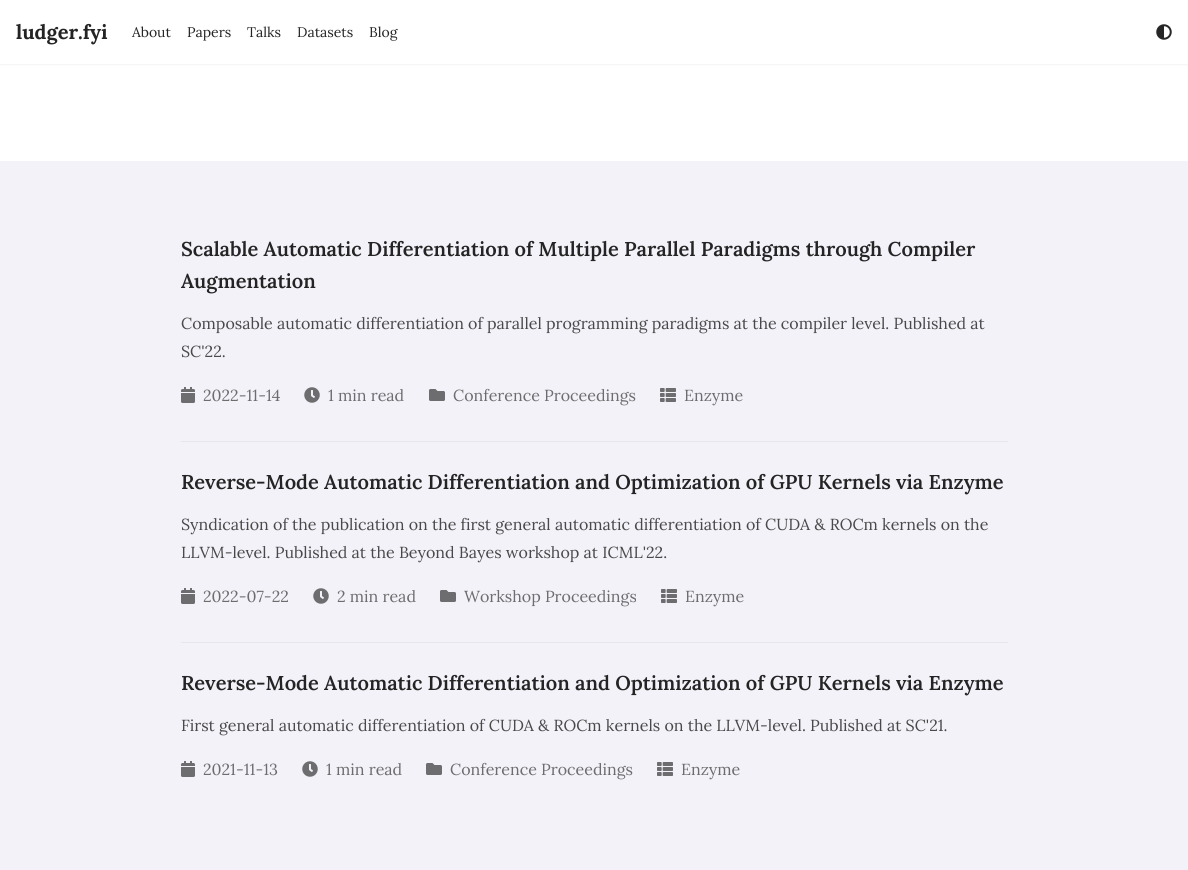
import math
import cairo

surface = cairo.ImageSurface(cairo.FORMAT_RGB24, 1188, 870)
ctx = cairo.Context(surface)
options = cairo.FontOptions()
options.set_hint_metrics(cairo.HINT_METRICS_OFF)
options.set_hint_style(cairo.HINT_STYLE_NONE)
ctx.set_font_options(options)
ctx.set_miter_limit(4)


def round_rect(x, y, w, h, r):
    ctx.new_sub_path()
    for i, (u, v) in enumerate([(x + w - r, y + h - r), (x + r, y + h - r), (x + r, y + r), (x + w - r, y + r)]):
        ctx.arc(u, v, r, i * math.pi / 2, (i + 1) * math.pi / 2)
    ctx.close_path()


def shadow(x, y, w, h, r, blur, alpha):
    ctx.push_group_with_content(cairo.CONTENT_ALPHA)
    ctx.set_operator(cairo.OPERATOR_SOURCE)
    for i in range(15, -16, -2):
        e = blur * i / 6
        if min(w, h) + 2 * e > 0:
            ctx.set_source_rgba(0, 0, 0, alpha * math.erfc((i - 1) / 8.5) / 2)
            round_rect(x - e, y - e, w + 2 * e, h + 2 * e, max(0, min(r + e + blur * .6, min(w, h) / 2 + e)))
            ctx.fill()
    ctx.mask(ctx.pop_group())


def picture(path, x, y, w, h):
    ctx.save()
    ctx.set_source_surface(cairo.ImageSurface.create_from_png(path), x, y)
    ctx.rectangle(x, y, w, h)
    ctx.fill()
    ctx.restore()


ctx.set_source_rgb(0.949, 0.949, 0.969)
ctx.paint()
ctx.set_source_rgb(1, 1, 1)
ctx.rectangle(0, 64, 1188, 97)
ctx.fill()
ctx.set_source_rgb(0, 0, 0)
shadow(0, 1, 1188, 64, 0, 1, 0.05)
ctx.set_source_rgb(1, 1, 1)
ctx.rectangle(0, 0, 1188, 64)
ctx.fill()
ctx.select_font_face("Lora", cairo.FONT_SLANT_NORMAL, cairo.FONT_WEIGHT_BOLD)
ctx.set_font_size(20)
ctx.set_source_rgb(0.141, 0.141, 0.145)
ctx.move_to(16, 39)
ctx.show_text("ludger.fyi")
ctx.select_font_face("Lora")
ctx.set_font_size(14)
ctx.move_to(132, 37)
ctx.show_text("About")
ctx.move_to(187, 37)
ctx.show_text("Papers")
ctx.move_to(247, 37)
ctx.show_text("Talks")
ctx.move_to(297, 37)
ctx.show_text("Datasets")
ctx.move_to(369, 37)
ctx.show_text("Blog")
picture("img1.png", 1156, 24, 16, 16)
ctx.select_font_face("Lora SemiBold")
ctx.set_font_size(20)
ctx.move_to(181, 256)
ctx.show_text("Scalable Automatic Differentiation of Multiple Parallel Paradigms through Compiler")
ctx.move_to(181, 288)
ctx.show_text("Augmentation")
ctx.select_font_face("Lora")
ctx.set_font_size(16)
ctx.set_source_rgb(0.286, 0.286, 0.29)
ctx.move_to(181, 329)
ctx.show_text("Composable automatic differentiation of parallel programming paradigms at the compiler level. Published at")
ctx.move_to(181, 357)
ctx.show_text("SC'22.")
picture("img2.png", 181, 387, 14, 16)
ctx.set_source_rgb(0.427, 0.427, 0.435)
ctx.move_to(203, 401)
ctx.show_text("2022-11-14")
picture("img3.png", 304, 387, 16, 16)
ctx.move_to(328, 401)
ctx.show_text("1 min read")
picture("img4.png", 429, 389, 16, 12)
ctx.move_to(453, 401)
ctx.show_text("Conference Proceedings")
picture("img5.png", 660, 388, 16, 14)
ctx.move_to(684, 401)
ctx.show_text("Enzyme")
ctx.set_source_rgb(0.898, 0.906, 0.922)
ctx.rectangle(181, 441, 827, 1)
ctx.fill()
ctx.select_font_face("Lora SemiBold")
ctx.set_font_size(20)
ctx.set_source_rgb(0.141, 0.141, 0.145)
ctx.move_to(181, 489)
ctx.show_text("Reverse-Mode Automatic Differentiation and Optimization of GPU Kernels via Enzyme")
ctx.select_font_face("Lora")
ctx.set_font_size(16)
ctx.set_source_rgb(0.286, 0.286, 0.29)
ctx.move_to(181, 530)
ctx.show_text("Syndication of the publication on the first general automatic differentiation of CUDA & ROCm kernels on the")
ctx.move_to(181, 558)
ctx.show_text("LLVM-level. Published at the Beyond Bayes workshop at ICML'22.")
picture("img2.png", 181, 588, 14, 16)
ctx.set_source_rgb(0.427, 0.427, 0.435)
ctx.move_to(203, 602)
ctx.show_text("2022-07-22")
picture("img3.png", 313, 588, 16, 16)
ctx.move_to(337, 602)
ctx.show_text("2 min read")
picture("img4.png", 440, 590, 16, 12)
ctx.move_to(464, 602)
ctx.show_text("Workshop Proceedings")
picture("img5.png", 661, 589, 16, 14)
ctx.move_to(685, 602)
ctx.show_text("Enzyme")
ctx.set_source_rgb(0.898, 0.906, 0.922)
ctx.rectangle(181, 642, 827, 1)
ctx.fill()
ctx.select_font_face("Lora SemiBold")
ctx.set_font_size(20)
ctx.set_source_rgb(0.141, 0.141, 0.145)
ctx.move_to(181, 690)
ctx.show_text("Reverse-Mode Automatic Differentiation and Optimization of GPU Kernels via Enzyme")
ctx.select_font_face("Lora")
ctx.set_font_size(16)
ctx.set_source_rgb(0.286, 0.286, 0.29)
ctx.move_to(181, 731)
ctx.show_text("First general automatic differentiation of CUDA & ROCm kernels on the LLVM-level. Published at SC'21.")
picture("img2.png", 181, 761, 14, 16)
ctx.set_source_rgb(0.427, 0.427, 0.435)
ctx.move_to(203, 775)
ctx.show_text("2021-11-13")
picture("img3.png", 302, 761, 16, 16)
ctx.move_to(326, 775)
ctx.show_text("1 min read")
picture("img4.png", 426, 763, 16, 12)
ctx.move_to(450, 775)
ctx.show_text("Conference Proceedings")
picture("img5.png", 657, 762, 16, 14)
ctx.move_to(681, 775)
ctx.show_text("Enzyme")
surface.write_to_png("page.png")
